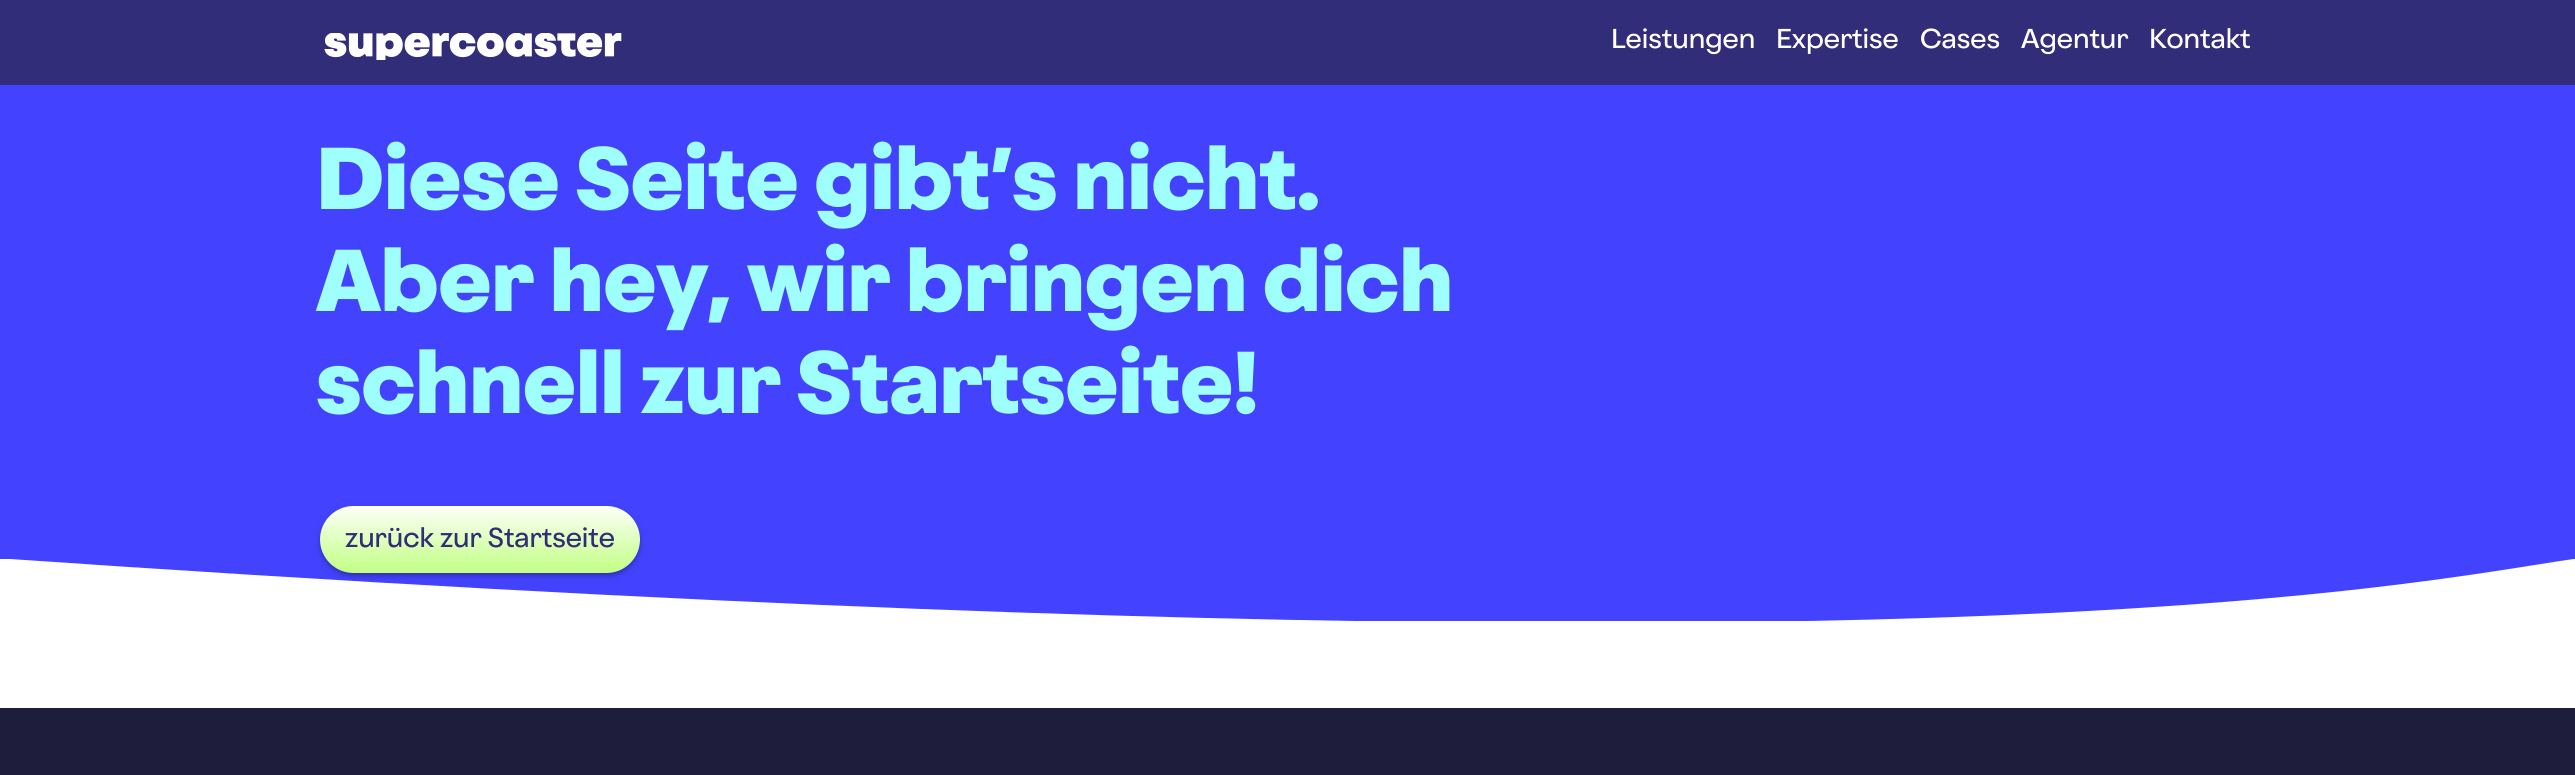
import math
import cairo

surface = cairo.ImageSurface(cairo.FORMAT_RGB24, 2575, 775)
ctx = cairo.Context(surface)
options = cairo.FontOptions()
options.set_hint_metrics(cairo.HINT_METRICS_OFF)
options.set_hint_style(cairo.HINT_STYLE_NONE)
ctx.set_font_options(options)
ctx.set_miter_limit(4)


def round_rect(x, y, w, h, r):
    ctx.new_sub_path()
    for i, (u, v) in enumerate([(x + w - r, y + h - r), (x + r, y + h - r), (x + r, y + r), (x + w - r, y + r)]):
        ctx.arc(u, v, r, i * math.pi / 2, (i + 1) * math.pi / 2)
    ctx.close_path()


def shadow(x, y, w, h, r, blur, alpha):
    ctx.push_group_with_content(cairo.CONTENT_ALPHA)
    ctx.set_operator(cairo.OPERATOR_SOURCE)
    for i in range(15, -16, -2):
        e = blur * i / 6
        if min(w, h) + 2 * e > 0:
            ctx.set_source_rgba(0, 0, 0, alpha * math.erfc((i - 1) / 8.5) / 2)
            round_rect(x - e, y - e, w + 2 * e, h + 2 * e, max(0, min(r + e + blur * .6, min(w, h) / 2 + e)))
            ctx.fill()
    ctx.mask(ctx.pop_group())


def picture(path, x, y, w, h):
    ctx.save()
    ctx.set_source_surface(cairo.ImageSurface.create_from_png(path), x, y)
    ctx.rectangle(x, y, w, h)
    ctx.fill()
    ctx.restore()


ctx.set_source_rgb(1, 1, 1)
ctx.paint()
ctx.set_source_rgb(0.196, 0.176, 0.471)
ctx.rectangle(0, 0, 2575, 85)
ctx.fill()
picture("img1.png", 324, 33, 298, 27)
ctx.select_font_face("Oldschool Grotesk")
ctx.set_font_size(24.5)
ctx.set_source_rgb(1, 1, 1)
ctx.move_to(1611, 48)
ctx.show_text("Leistungen")
ctx.move_to(1776, 48)
ctx.show_text("Expertise")
ctx.move_to(1920, 48)
ctx.show_text("Cases")
ctx.move_to(2021, 48)
ctx.show_text("Agentur")
ctx.move_to(2149, 48)
ctx.show_text("Kontakt")
ctx.set_source_rgb(0.263, 0.263, 1)
ctx.rectangle(0, 85, 2575, 536)
ctx.fill()
ctx.select_font_face("Oldschool Grotesk ExtraBold")
ctx.set_font_size(78.6)
ctx.set_source_rgb(0.62, 1, 0.988)
ctx.move_to(316, 209)
ctx.show_text("Diese Seite gibt’s nicht.")
ctx.move_to(316, 311)
ctx.show_text("Aber hey, wir bringen dich")
ctx.move_to(316, 413)
ctx.show_text("schnell zur Startseite!")
gradient = cairo.LinearGradient(480, 507, 480, 573)
gradient.add_color_stop_rgba(0, 0.992, 1, 0.969, 1)
gradient.add_color_stop_rgba(1, 0.757, 1, 0.514, 1)
ctx.set_source(gradient)
round_rect(320, 506, 320, 67, 33.5)
ctx.fill()
ctx.save()
ctx.set_fill_rule(cairo.FILL_RULE_EVEN_ODD)
ctx.new_path()
ctx.move_to(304, 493)
ctx.line_to(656, 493)
ctx.line_to(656, 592)
ctx.line_to(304, 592)
ctx.close_path()
ctx.move_to(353.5, 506)
ctx.line_to(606.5, 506)
ctx.curve_to(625, 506, 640, 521, 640, 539.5)
ctx.curve_to(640, 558, 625, 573, 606.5, 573)
ctx.line_to(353.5, 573)
ctx.curve_to(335, 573, 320, 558, 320, 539.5)
ctx.curve_to(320, 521, 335, 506, 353.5, 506)
ctx.close_path()
ctx.clip()
ctx.set_source_rgb(0, 0, 0)
shadow(320, 509, 320, 67, 33.5, 5, 0.1)
ctx.restore()
ctx.save()
ctx.set_fill_rule(cairo.FILL_RULE_EVEN_ODD)
ctx.new_path()
ctx.move_to(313, 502)
ctx.line_to(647, 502)
ctx.line_to(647, 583)
ctx.line_to(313, 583)
ctx.close_path()
ctx.move_to(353.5, 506)
ctx.line_to(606.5, 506)
ctx.curve_to(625, 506, 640, 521, 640, 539.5)
ctx.curve_to(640, 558, 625, 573, 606.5, 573)
ctx.line_to(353.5, 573)
ctx.curve_to(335, 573, 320, 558, 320, 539.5)
ctx.curve_to(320, 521, 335, 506, 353.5, 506)
ctx.close_path()
ctx.clip()
ctx.set_source_rgb(0, 0, 0)
shadow(320, 509, 320, 67, 33.5, 2, 0.2)
ctx.restore()
ctx.select_font_face("Oldschool Grotesk")
ctx.set_font_size(24.5)
ctx.set_source_rgb(0.196, 0.176, 0.471)
ctx.move_to(345, 547)
ctx.show_text("zurück zur Startseite")
ctx.save()
ctx.rectangle(0, 559, 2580, 62)
ctx.clip()
ctx.set_source_rgb(1, 1, 1)
ctx.new_path()
ctx.move_to(-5, 623)
ctx.line_to(1590, 623)
ctx.curve_to(1217, 623, 704, 607, -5, 558)
ctx.close_path()
ctx.fill()
ctx.new_path()
ctx.move_to(1590, 623)
ctx.line_to(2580, 623)
ctx.line_to(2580, 558)
ctx.curve_to(2474, 573, 2246, 623, 1590, 623)
ctx.close_path()
ctx.fill()
ctx.restore()
ctx.set_source_rgb(0.118, 0.118, 0.235)
ctx.rectangle(0, 708, 2575, 67)
ctx.fill()
surface.write_to_png("page.png")
